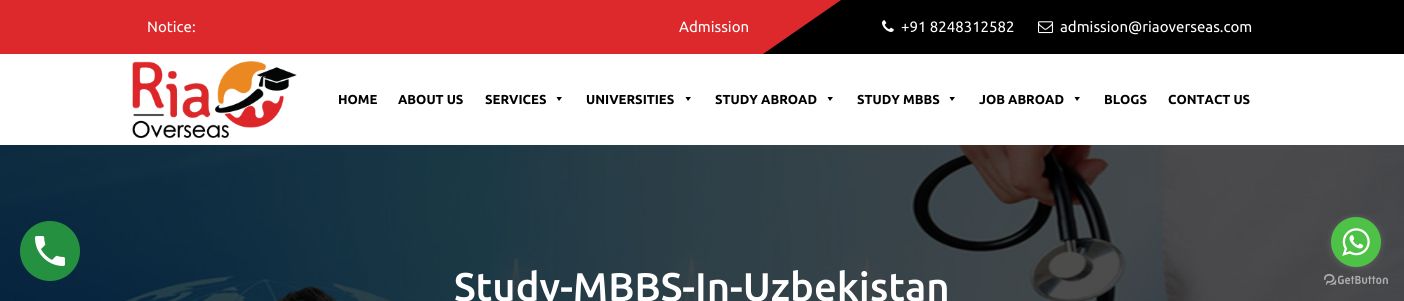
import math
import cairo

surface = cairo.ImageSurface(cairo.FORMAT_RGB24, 1404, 301)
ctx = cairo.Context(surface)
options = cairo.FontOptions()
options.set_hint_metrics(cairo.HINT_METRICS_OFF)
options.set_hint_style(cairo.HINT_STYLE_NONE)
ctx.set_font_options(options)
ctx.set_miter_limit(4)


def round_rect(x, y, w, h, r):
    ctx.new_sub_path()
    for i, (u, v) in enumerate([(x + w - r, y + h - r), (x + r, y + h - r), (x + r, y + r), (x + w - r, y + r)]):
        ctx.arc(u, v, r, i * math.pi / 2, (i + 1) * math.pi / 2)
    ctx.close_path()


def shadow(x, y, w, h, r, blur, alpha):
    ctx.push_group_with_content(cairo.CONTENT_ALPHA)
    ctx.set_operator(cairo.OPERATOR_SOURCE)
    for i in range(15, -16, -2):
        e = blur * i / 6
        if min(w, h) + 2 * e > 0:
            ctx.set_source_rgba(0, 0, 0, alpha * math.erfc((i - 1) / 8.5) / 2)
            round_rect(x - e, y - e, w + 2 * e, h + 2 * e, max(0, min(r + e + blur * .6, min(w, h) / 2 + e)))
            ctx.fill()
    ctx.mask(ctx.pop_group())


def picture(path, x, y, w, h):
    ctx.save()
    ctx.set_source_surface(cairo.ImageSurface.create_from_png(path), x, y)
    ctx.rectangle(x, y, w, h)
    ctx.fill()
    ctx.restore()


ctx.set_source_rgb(1, 1, 1)
ctx.paint()
ctx.set_source_rgb(0.867, 0.161, 0.169)
ctx.rectangle(0, 0, 841, 54)
ctx.fill()
ctx.set_source_rgb(0, 0, 0)
ctx.new_path()
ctx.move_to(841, 0)
ctx.line_to(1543, 0)
ctx.line_to(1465, 54)
ctx.line_to(763, 54)
ctx.close_path()
ctx.fill()
ctx.select_font_face("Ubuntu")
ctx.set_font_size(15)
ctx.set_source_rgb(1, 1, 1)
ctx.move_to(147, 32)
ctx.show_text("Notice:")
ctx.move_to(679, 32)
ctx.show_text("Admission")
picture("img1.png", 882, 20, 12, 12)
ctx.move_to(901, 32)
ctx.show_text("+91 8248312582")
picture("img2.png", 1038, 21, 15, 13)
ctx.move_to(1060, 32)
ctx.show_text("admission@riaoverseas.com")
picture("img3.png", 132, 61, 165, 77)
ctx.select_font_face("Ubuntu", cairo.FONT_SLANT_NORMAL, cairo.FONT_WEIGHT_BOLD)
ctx.set_font_size(13)
ctx.set_source_rgb(0, 0, 0)
ctx.move_to(338, 104)
ctx.show_text("HOME")
ctx.move_to(398, 104)
ctx.show_text("ABOUT US")
ctx.move_to(485, 104)
ctx.show_text("SERVICES")
ctx.new_path()
ctx.move_to(562, 97)
ctx.line_to(559, 101)
ctx.line_to(556.5, 97)
ctx.close_path()
ctx.fill()
ctx.move_to(586, 104)
ctx.show_text("UNIVERSITIES")
ctx.new_path()
ctx.move_to(691, 97)
ctx.line_to(688, 101)
ctx.line_to(685.5, 97)
ctx.close_path()
ctx.fill()
ctx.move_to(715, 104)
ctx.show_text("STUDY ABROAD")
ctx.new_path()
ctx.move_to(833, 97)
ctx.line_to(830, 101)
ctx.line_to(827.5, 97)
ctx.close_path()
ctx.fill()
ctx.move_to(857, 104)
ctx.show_text("STUDY MBBS")
ctx.new_path()
ctx.move_to(955, 97)
ctx.line_to(952, 101)
ctx.line_to(949.5, 97)
ctx.close_path()
ctx.fill()
ctx.move_to(979, 104)
ctx.show_text("JOB ABROAD")
ctx.new_path()
ctx.move_to(1080, 97)
ctx.line_to(1077, 101)
ctx.line_to(1074.5, 97)
ctx.close_path()
ctx.fill()
ctx.move_to(1104, 104)
ctx.show_text("BLOGS")
ctx.move_to(1168, 104)
ctx.show_text("CONTACT US")
picture("img7.png", 0, 145, 1404, 156)
ctx.set_source_rgb(0.149, 0.565, 0.255)
ctx.arc(50, 251, 30, 0, 2 * math.pi)
ctx.fill()
picture("img4.png", 35, 236, 30, 30)
picture("img6.png", 1324, 274, 64, 11)
ctx.set_source_rgb(0.533, 0.533, 0.533)
shadow(1331, 218, 50, 50, 25, 3.5, 0.4)
ctx.set_source_rgb(0.302, 0.761, 0.278)
ctx.arc(1356, 242, 25, 0, 2 * math.pi)
ctx.fill()
picture("img5.png", 1342, 228, 28, 28)
ctx.select_font_face("Ubuntu Medium")
ctx.set_font_size(40)
ctx.set_source_rgb(1, 1, 1)
ctx.move_to(454, 301)
ctx.show_text("Study-MBBS-In-Uzbekistan")
surface.write_to_png("page.png")
